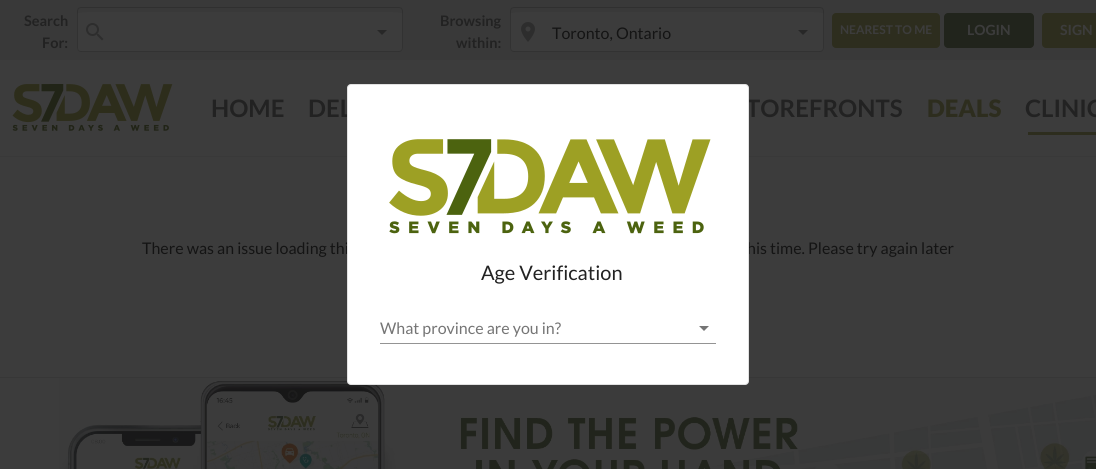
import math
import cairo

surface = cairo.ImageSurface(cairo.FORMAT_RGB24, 1096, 469)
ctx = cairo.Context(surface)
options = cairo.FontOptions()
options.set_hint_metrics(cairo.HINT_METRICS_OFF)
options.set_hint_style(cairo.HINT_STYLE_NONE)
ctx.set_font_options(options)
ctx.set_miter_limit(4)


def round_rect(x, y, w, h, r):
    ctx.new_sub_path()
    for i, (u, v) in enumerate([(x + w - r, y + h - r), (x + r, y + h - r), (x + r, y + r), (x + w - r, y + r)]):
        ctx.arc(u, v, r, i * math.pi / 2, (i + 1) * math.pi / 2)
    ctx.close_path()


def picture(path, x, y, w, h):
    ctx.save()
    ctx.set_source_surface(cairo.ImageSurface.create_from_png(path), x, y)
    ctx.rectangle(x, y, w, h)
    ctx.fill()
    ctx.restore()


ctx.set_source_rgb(0.235, 0.235, 0.235)
ctx.paint()
ctx.set_source_rgb(0.224, 0.224, 0.224)
ctx.rectangle(0, 156, 1096, 1)
ctx.fill()
ctx.rectangle(0, 0, 1096, 60)
ctx.fill()
ctx.select_font_face("Lato", cairo.FONT_SLANT_NORMAL, cairo.FONT_WEIGHT_BOLD)
ctx.set_font_size(14.5)
ctx.set_source_rgb(0.133, 0.133, 0.133)
ctx.move_to(24, 26)
ctx.show_text("Search")
ctx.move_to(42, 48)
ctx.show_text("For:")
ctx.set_source_rgb(0.235, 0.235, 0.235)
ctx.new_path()
ctx.move_to(93, 12)
ctx.line_to(387, 12)
ctx.curve_to(396, 12, 403, 13, 403, 14)
ctx.line_to(403, 50)
ctx.curve_to(403, 51, 396, 52, 387, 52)
ctx.line_to(93, 52)
ctx.curve_to(84, 52, 77, 51, 77, 50)
ctx.line_to(77, 14)
ctx.curve_to(77, 13, 84, 12, 93, 12)
ctx.close_path()
ctx.fill()
picture("img1.png", 86, 23, 18, 18)
ctx.set_source_rgb(0.153, 0.153, 0.153)
ctx.new_path()
ctx.move_to(377, 30)
ctx.line_to(382, 35)
ctx.line_to(387, 30)
ctx.close_path()
ctx.fill()
round_rect(77.5, 7.5, 325, 44, 3.5)
ctx.set_source_rgba(0.082, 0.082, 0.082, 0.23)
ctx.set_line_width(1)
ctx.stroke()
ctx.set_source_rgb(0.133, 0.133, 0.133)
ctx.move_to(440, 26)
ctx.show_text("Browsing")
ctx.move_to(456, 48)
ctx.show_text("within:")
ctx.set_source_rgb(0.235, 0.235, 0.235)
ctx.new_path()
ctx.move_to(526, 12)
ctx.line_to(808, 12)
ctx.curve_to(817, 12, 824, 13, 824, 14)
ctx.line_to(824, 50)
ctx.curve_to(824, 51, 817, 52, 808, 52)
ctx.line_to(526, 52)
ctx.curve_to(517, 52, 510, 51, 510, 50)
ctx.line_to(510, 14)
ctx.curve_to(510, 13, 517, 12, 526, 12)
ctx.close_path()
ctx.fill()
picture("img2.png", 521, 22, 14, 20)
ctx.set_source_rgb(0.153, 0.153, 0.153)
ctx.new_path()
ctx.move_to(798, 30)
ctx.line_to(803, 35)
ctx.line_to(808, 30)
ctx.close_path()
ctx.fill()
round_rect(510.5, 7.5, 313, 44, 3.5)
ctx.set_source_rgba(0.082, 0.082, 0.082, 0.23)
ctx.stroke()
ctx.select_font_face("Lato")
ctx.set_font_size(16)
ctx.set_source_rgb(0.082, 0.082, 0.082)
ctx.move_to(552, 39)
ctx.show_text("Toronto, Ontario")
ctx.set_source_rgb(0.176, 0.176, 0.118)
round_rect(832, 13, 108, 35, 4)
ctx.fill()
ctx.select_font_face("Lato", cairo.FONT_SLANT_NORMAL, cairo.FONT_WEIGHT_BOLD)
ctx.set_font_size(12)
ctx.set_source_rgb(0.235, 0.235, 0.235)
ctx.move_to(840, 34)
ctx.show_text("NEAREST TO ME")
ctx.set_source_rgb(0.129, 0.141, 0.11)
round_rect(944, 13, 90, 35, 4)
ctx.fill()
ctx.set_font_size(14)
ctx.set_source_rgb(0.235, 0.235, 0.235)
ctx.move_to(967, 35)
ctx.show_text("LOGIN")
ctx.set_source_rgb(0.176, 0.176, 0.118)
round_rect(1042, 13, 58, 35, 4)
ctx.fill()
ctx.set_source_rgb(0.235, 0.235, 0.235)
ctx.move_to(1060, 35)
ctx.show_text("SIGN")
picture("img3.png", 12, 84, 161, 47)
ctx.set_font_size(24)
ctx.set_source_rgb(0.133, 0.133, 0.133)
ctx.move_to(211, 117)
ctx.show_text("HOME")
ctx.move_to(308, 117)
ctx.show_text("DEL")
ctx.move_to(746, 117)
ctx.show_text("TOREFRONTS")
ctx.select_font_face("Lato Black")
ctx.set_source_rgb(0.176, 0.176, 0.118)
ctx.move_to(927, 117)
ctx.show_text("DEALS")
ctx.select_font_face("Lato", cairo.FONT_SLANT_NORMAL, cairo.FONT_WEIGHT_BOLD)
ctx.set_source_rgb(0.133, 0.133, 0.133)
ctx.move_to(1025, 117)
ctx.show_text("CLINIC")
ctx.set_source_rgb(0.176, 0.176, 0.118)
ctx.rectangle(1028, 132, 68, 3)
ctx.fill()
ctx.select_font_face("Lato")
ctx.set_font_size(16)
ctx.set_source_rgb(0.082, 0.082, 0.082)
ctx.move_to(142, 254)
ctx.show_text("There was an issue loading thi")
ctx.move_to(747, 254)
ctx.show_text("his time. Please try again later")
ctx.set_source_rgba(0.082, 0.082, 0.082, 0.12)
ctx.rectangle(0, 377, 1096, 1)
ctx.fill()
picture("img4.png", 59, 378, 1037, 91)
ctx.set_source_rgb(1, 1, 1)
round_rect(347, 84, 402, 301, 4)
ctx.fill()
round_rect(347.5, 84.5, 401, 300, 3.5)
ctx.set_source_rgba(0, 0, 0, 0.12)
ctx.stroke()
picture("img5.png", 389, 139, 322, 95)
ctx.set_font_size(20)
ctx.set_source_rgb(0.133, 0.133, 0.133)
ctx.move_to(481, 280)
ctx.show_text("Age Verification")
ctx.set_font_size(16)
ctx.set_source_rgb(0.459, 0.459, 0.459)
ctx.move_to(380, 334)
ctx.show_text("What province are you in?")
ctx.new_path()
ctx.move_to(699, 326)
ctx.line_to(704, 331)
ctx.line_to(709, 326)
ctx.close_path()
ctx.fill()
ctx.set_source_rgb(0.58, 0.58, 0.58)
ctx.rectangle(380, 343, 336, 1)
ctx.fill()
surface.write_to_png("page.png")
